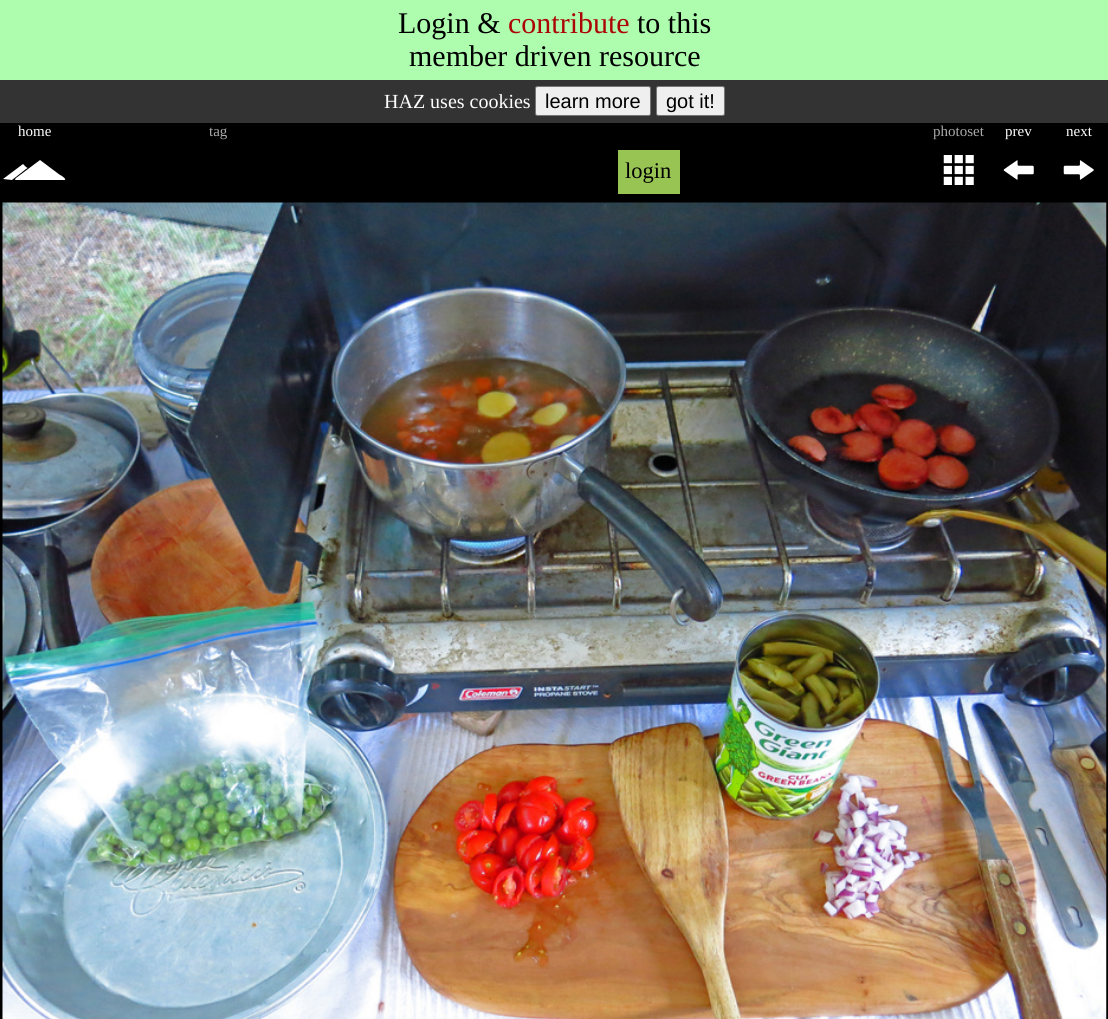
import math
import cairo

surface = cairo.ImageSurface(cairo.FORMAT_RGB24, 1108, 1019)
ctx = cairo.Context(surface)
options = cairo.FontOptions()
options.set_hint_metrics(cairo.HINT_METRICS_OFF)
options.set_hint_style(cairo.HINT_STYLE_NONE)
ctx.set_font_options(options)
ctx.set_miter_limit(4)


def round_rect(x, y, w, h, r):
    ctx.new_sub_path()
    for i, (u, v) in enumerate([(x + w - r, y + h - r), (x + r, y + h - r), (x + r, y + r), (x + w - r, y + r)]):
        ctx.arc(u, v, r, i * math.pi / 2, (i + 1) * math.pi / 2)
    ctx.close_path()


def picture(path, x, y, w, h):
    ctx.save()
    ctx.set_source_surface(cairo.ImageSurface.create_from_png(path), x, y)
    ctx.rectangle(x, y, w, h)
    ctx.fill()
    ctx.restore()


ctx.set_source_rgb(0, 0, 0)
ctx.paint()
ctx.set_source_rgb(0.682, 0.992, 0.682)
ctx.rectangle(0, 0, 1108, 80)
ctx.fill()
ctx.select_font_face("Liberation Serif")
ctx.set_font_size(30)
ctx.set_source_rgb(0, 0, 0)
ctx.move_to(398, 33)
ctx.show_text("Login &")
ctx.set_source_rgb(0.675, 0.02, 0.02)
ctx.move_to(508, 33)
ctx.show_text("contribute")
ctx.set_source_rgb(0, 0, 0)
ctx.move_to(637, 33)
ctx.show_text("to this")
ctx.move_to(409, 66)
ctx.show_text("member driven resource")
ctx.set_source_rgb(0.2, 0.2, 0.2)
ctx.rectangle(0, 80, 1108, 43)
ctx.fill()
ctx.set_font_size(20)
ctx.set_source_rgb(1, 1, 1)
ctx.move_to(384, 108)
ctx.show_text("HAZ uses cookies")
ctx.set_source_rgb(0.937, 0.937, 0.937)
round_rect(535.5, 86.5, 115, 29, 2)
ctx.fill_preserve()
ctx.set_source_rgb(0.463, 0.463, 0.463)
ctx.set_line_width(1)
ctx.stroke()
ctx.select_font_face("Liberation Sans")
ctx.set_source_rgb(0, 0, 0)
ctx.move_to(545, 108)
ctx.show_text("learn more")
ctx.set_source_rgb(0.937, 0.937, 0.937)
round_rect(656.5, 86.5, 68, 29, 2)
ctx.fill_preserve()
ctx.set_source_rgb(0.463, 0.463, 0.463)
ctx.stroke()
ctx.set_source_rgb(0, 0, 0)
ctx.move_to(666, 108)
ctx.show_text("got it!")
ctx.select_font_face("Liberation Serif")
ctx.set_font_size(15)
ctx.set_source_rgb(1, 1, 1)
ctx.move_to(18, 136)
ctx.show_text("home")
ctx.set_source_rgb(0.667, 0.667, 0.667)
ctx.move_to(209, 136)
ctx.show_text("tag")
ctx.move_to(933, 136)
ctx.show_text("photoset")
ctx.set_source_rgb(1, 1, 1)
ctx.move_to(1005, 136)
ctx.show_text("prev")
ctx.move_to(1066, 136)
ctx.show_text("next")
ctx.new_path()
ctx.move_to(3, 179)
ctx.line_to(23, 164)
ctx.line_to(26, 167)
ctx.curve_to(28, 168, 28, 168, 26, 169)
ctx.line_to(12, 180)
ctx.close_path()
ctx.move_to(15, 180)
ctx.curve_to(15, 179, 16, 178, 16, 178)
ctx.line_to(40, 160)
ctx.line_to(60, 175)
ctx.curve_to(61, 175, 68, 180, 64, 180)
ctx.close_path()
ctx.fill()
ctx.set_source_rgb(0.596, 0.769, 0.329)
ctx.rectangle(618, 150, 62, 44)
ctx.fill()
ctx.set_font_size(22.5)
ctx.set_source_rgb(0, 0, 0)
ctx.move_to(625, 178)
ctx.show_text("login")
picture("img1.png", 943, 155, 31, 30)
picture("img2.png", 1003, 160, 31, 20)
picture("img3.png", 1063, 160, 31, 20)
picture("img4.png", 2, 202, 1105, 817)
surface.write_to_png("page.png")
